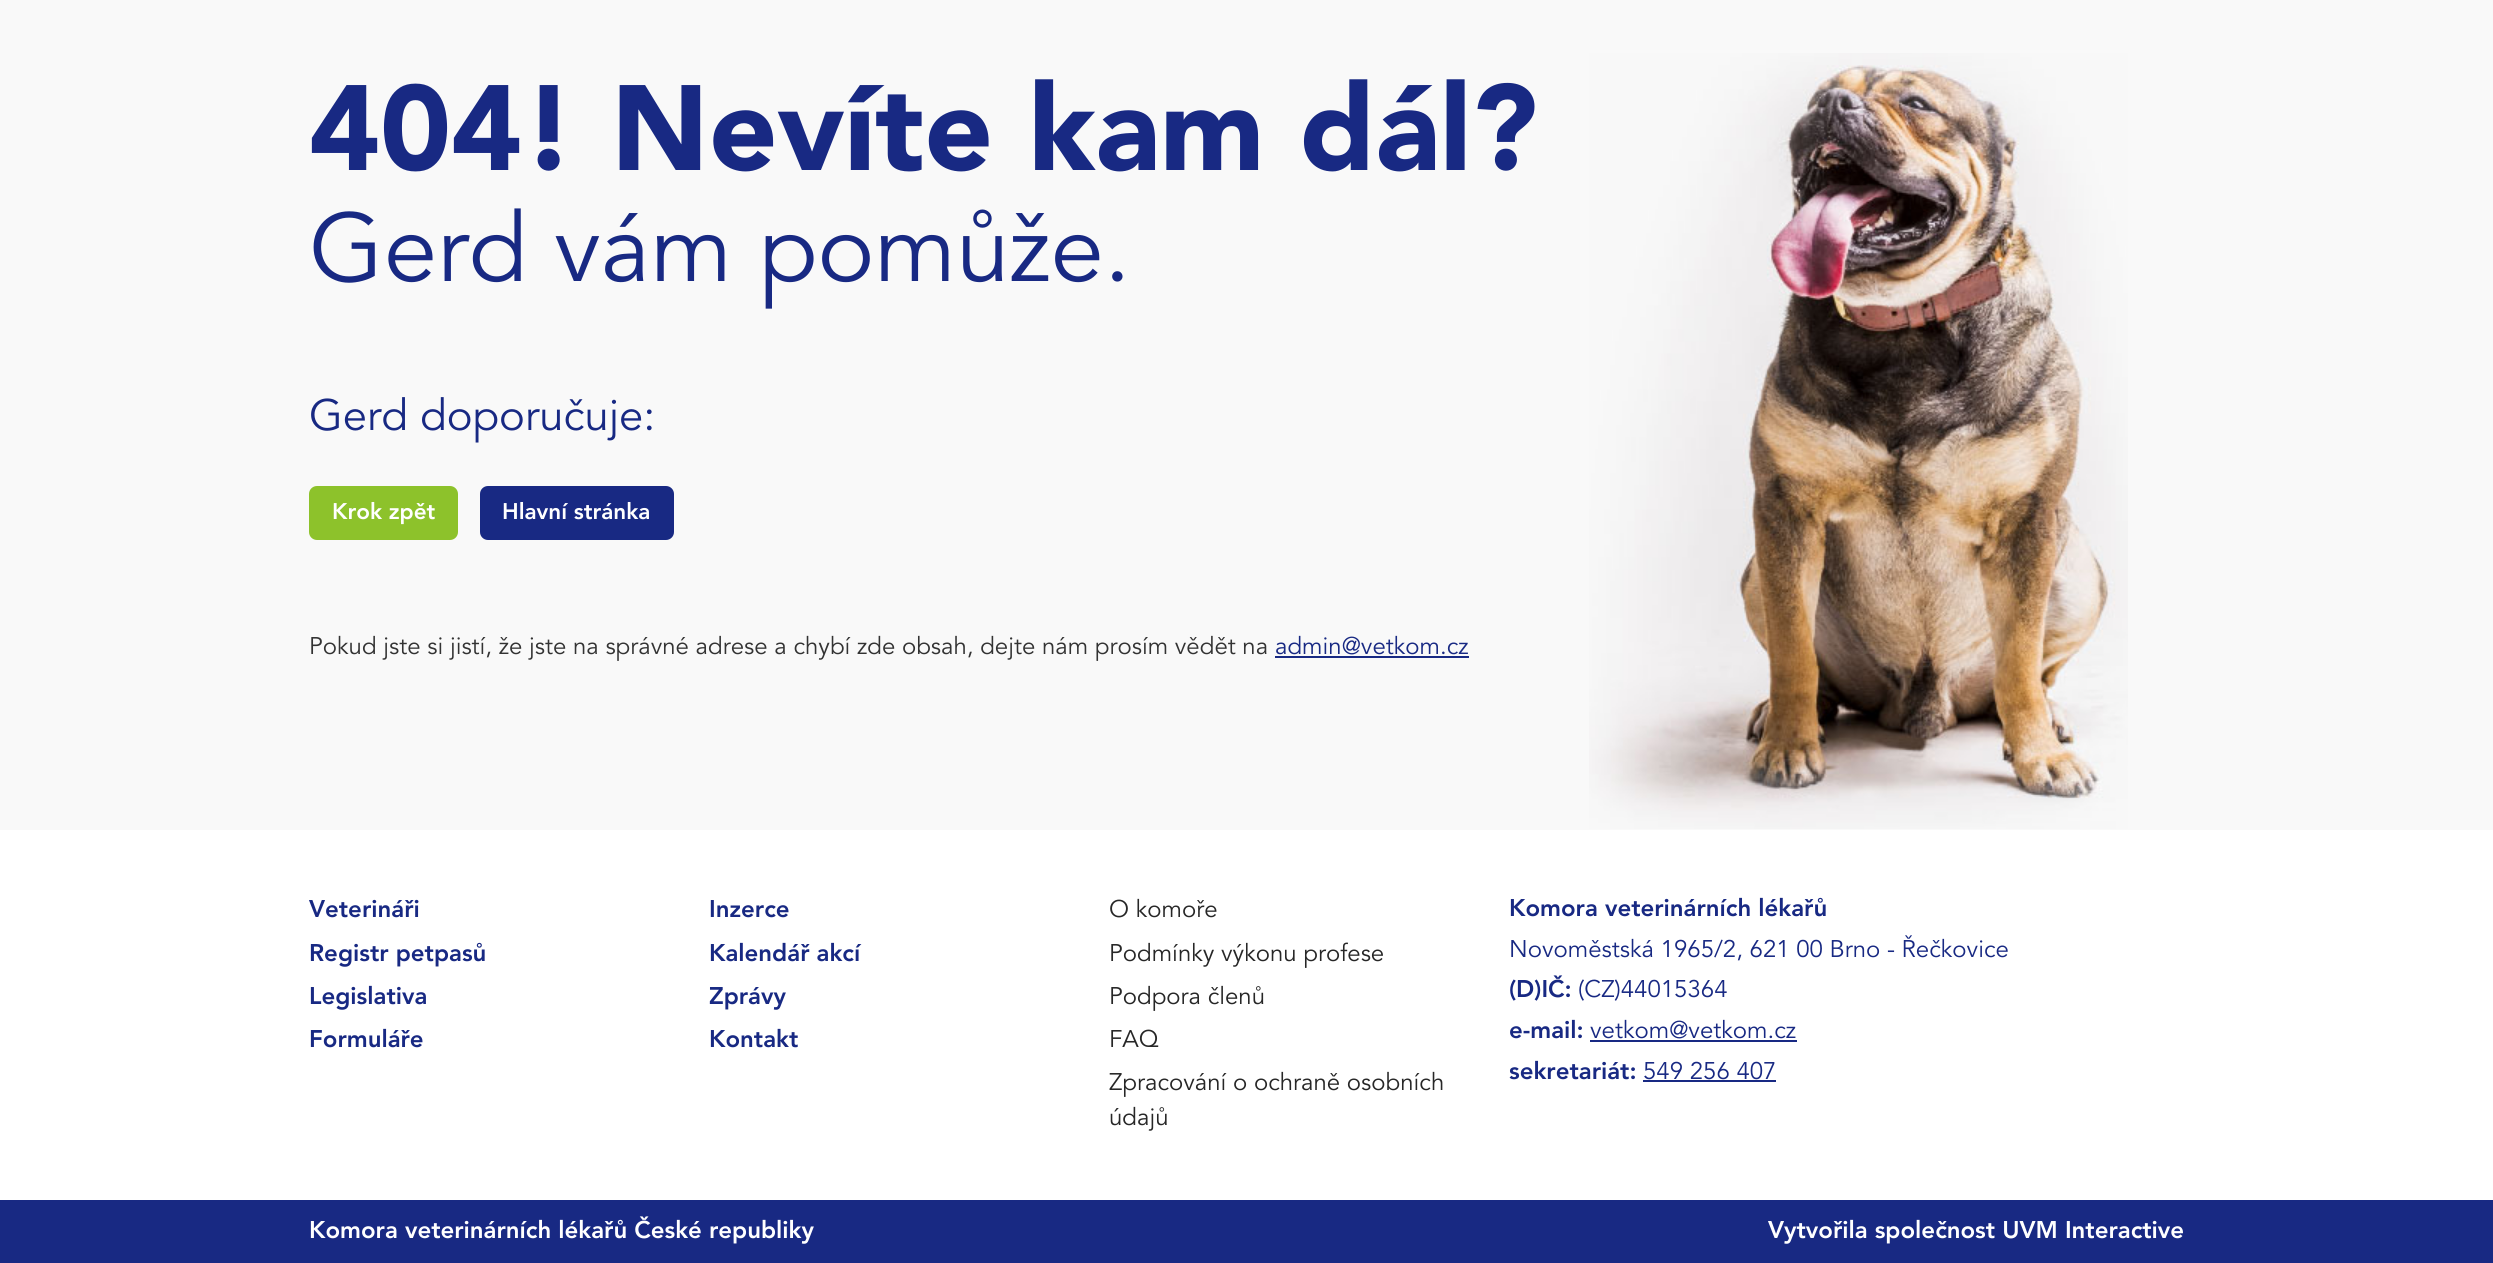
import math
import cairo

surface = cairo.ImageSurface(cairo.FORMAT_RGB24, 2493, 1263)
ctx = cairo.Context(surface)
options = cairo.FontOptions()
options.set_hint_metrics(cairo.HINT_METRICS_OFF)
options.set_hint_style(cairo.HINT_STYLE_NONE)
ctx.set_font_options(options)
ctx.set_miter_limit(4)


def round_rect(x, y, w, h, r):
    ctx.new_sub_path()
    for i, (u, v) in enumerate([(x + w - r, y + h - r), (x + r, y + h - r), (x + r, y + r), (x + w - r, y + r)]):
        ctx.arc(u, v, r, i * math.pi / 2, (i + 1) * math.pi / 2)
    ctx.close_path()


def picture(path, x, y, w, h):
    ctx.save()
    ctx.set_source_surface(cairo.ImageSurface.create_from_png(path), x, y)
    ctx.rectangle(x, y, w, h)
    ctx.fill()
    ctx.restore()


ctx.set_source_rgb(0.973, 0.973, 0.973)
ctx.paint()
picture("img1.png", 1589, 53, 539, 776)
ctx.select_font_face("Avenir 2 Black")
ctx.set_font_size(120)
ctx.set_source_rgb(0.094, 0.161, 0.514)
ctx.move_to(309, 170)
ctx.show_text("404! Nevíte kam dál?")
ctx.select_font_face("Avenir")
ctx.set_font_size(96)
ctx.move_to(309, 281)
ctx.show_text("Gerd vám pomůže.")
ctx.set_font_size(43.5)
ctx.move_to(309, 430)
ctx.show_text("Gerd doporučuje:")
ctx.set_source_rgb(0.553, 0.761, 0.169)
round_rect(309, 486, 149, 54, 8)
ctx.fill()
ctx.select_font_face("Avenir Black")
ctx.set_font_size(22.5)
ctx.set_source_rgb(1, 1, 1)
ctx.move_to(332, 519)
ctx.show_text("Krok zpět")
ctx.set_source_rgb(0.094, 0.161, 0.514)
round_rect(480, 486, 194, 54, 8)
ctx.fill()
ctx.set_source_rgb(1, 1, 1)
ctx.move_to(502, 519)
ctx.show_text("Hlavní stránka")
ctx.select_font_face("Avenir")
ctx.set_font_size(24)
ctx.set_source_rgb(0.2, 0.2, 0.2)
ctx.move_to(309, 654)
ctx.show_text("Pokud jste si jistí, že jste na správné adrese a chybí zde obsah, dejte nám prosím vědět na")
ctx.set_source_rgb(0.094, 0.161, 0.514)
ctx.move_to(1275, 654)
ctx.show_text("admin@vetkom.cz")
ctx.rectangle(1275, 656, 194, 2)
ctx.fill()
ctx.set_source_rgb(1, 1, 1)
ctx.rectangle(0, 830, 2493, 370)
ctx.fill()
ctx.select_font_face("Avenir Black")
ctx.set_source_rgb(0.094, 0.161, 0.514)
ctx.move_to(309, 917)
ctx.show_text("Veterináři")
ctx.move_to(309, 961)
ctx.show_text("Registr petpasů")
ctx.move_to(309, 1004)
ctx.show_text("Legislativa")
ctx.move_to(309, 1047)
ctx.show_text("Formuláře")
ctx.move_to(709, 917)
ctx.show_text("Inzerce")
ctx.move_to(709, 961)
ctx.show_text("Kalendář akcí")
ctx.move_to(709, 1004)
ctx.show_text("Zprávy")
ctx.move_to(709, 1047)
ctx.show_text("Kontakt")
ctx.select_font_face("Avenir")
ctx.set_source_rgb(0.153, 0.153, 0.153)
ctx.move_to(1109, 917)
ctx.show_text("O komoře")
ctx.move_to(1109, 961)
ctx.show_text("Podmínky výkonu profese")
ctx.move_to(1109, 1004)
ctx.show_text("Podpora členů")
ctx.move_to(1109, 1047)
ctx.show_text("FAQ")
ctx.move_to(1109, 1090)
ctx.show_text("Zpracování o ochraně osobních")
ctx.move_to(1109, 1125)
ctx.show_text("údajů")
ctx.select_font_face("Avenir Black")
ctx.set_source_rgb(0.094, 0.161, 0.514)
ctx.move_to(1509, 916)
ctx.show_text("Komora veterinárních lékařů")
ctx.select_font_face("Avenir")
ctx.move_to(1509, 957)
ctx.show_text("Novoměstská 1965/2, 621 00 Brno - Řečkovice")
ctx.select_font_face("Avenir Black")
ctx.move_to(1509, 997)
ctx.show_text("(D)IČ:")
ctx.select_font_face("Avenir")
ctx.move_to(1578, 997)
ctx.show_text("(CZ)44015364")
ctx.select_font_face("Avenir Black")
ctx.move_to(1509, 1038)
ctx.show_text("e-mail:")
ctx.select_font_face("Avenir")
ctx.move_to(1590, 1038)
ctx.show_text("vetkom@vetkom.cz")
ctx.rectangle(1590, 1040, 207, 2)
ctx.fill()
ctx.select_font_face("Avenir Black")
ctx.move_to(1509, 1079)
ctx.show_text("sekretariát:")
ctx.select_font_face("Avenir")
ctx.move_to(1643, 1079)
ctx.show_text("549 256 407")
ctx.rectangle(1643, 1080, 133, 2)
ctx.fill()
ctx.rectangle(0, 1200, 2493, 63)
ctx.fill()
ctx.select_font_face("Avenir Black")
ctx.set_source_rgb(1, 1, 1)
ctx.move_to(309, 1238)
ctx.show_text("Komora veterinárních lékařů České republiky")
ctx.move_to(1768, 1238)
ctx.show_text("Vytvořila společnost UVM Interactive")
surface.write_to_png("page.png")
